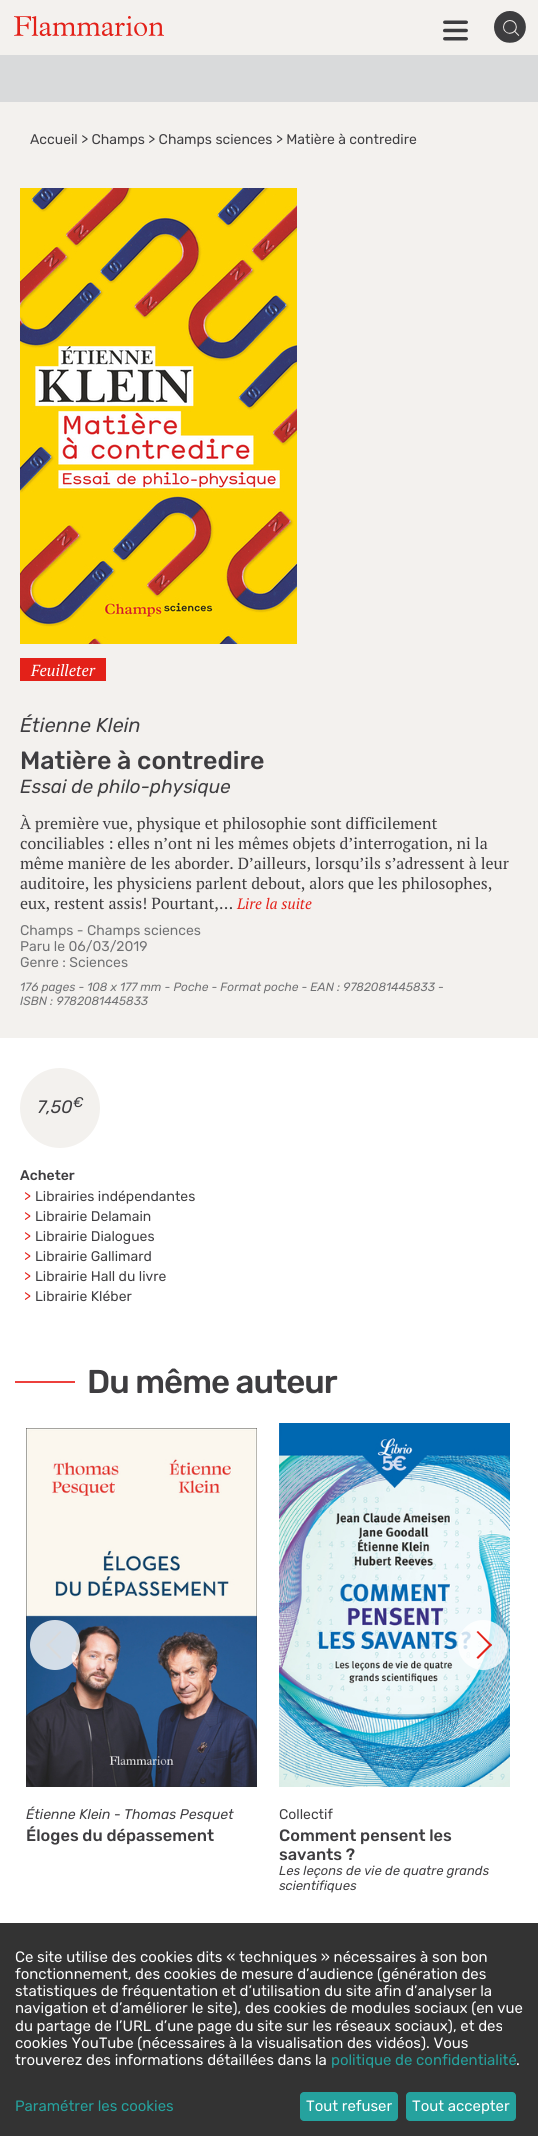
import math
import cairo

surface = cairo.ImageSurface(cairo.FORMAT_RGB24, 538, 2136)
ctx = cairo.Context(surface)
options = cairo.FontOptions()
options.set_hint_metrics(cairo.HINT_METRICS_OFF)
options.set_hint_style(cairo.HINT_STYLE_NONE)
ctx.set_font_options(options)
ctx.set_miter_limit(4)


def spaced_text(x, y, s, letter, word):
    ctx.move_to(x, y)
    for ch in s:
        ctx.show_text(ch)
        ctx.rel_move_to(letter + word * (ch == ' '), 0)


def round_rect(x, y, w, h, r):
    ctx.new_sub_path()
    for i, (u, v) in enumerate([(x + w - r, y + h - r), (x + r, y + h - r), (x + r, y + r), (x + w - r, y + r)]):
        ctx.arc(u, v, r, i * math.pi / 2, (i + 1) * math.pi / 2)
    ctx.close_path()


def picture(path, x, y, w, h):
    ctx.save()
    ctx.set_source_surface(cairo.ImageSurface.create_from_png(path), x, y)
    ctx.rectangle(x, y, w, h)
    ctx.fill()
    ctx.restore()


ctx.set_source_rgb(0.953, 0.945, 0.933)
ctx.paint()
picture("img1.png", 14, 16, 150, 20)
picture("img2.png", 443, 20, 25, 21)
picture("img3.png", 494, 11, 32, 32)
ctx.set_source_rgb(0.851, 0.855, 0.859)
ctx.rectangle(0, 55, 538, 47)
ctx.fill()
ctx.select_font_face("Rubik")
ctx.set_font_size(14)
ctx.set_source_rgb(0.243, 0.239, 0.251)
ctx.move_to(30, 144)
ctx.show_text("Accueil > Champs > Champs sciences > Matière à contredire")
picture("img4.png", 20, 188, 277, 456)
ctx.set_source_rgb(0.89, 0.129, 0.098)
ctx.rectangle(20, 658, 86, 23)
ctx.fill()
ctx.select_font_face("PT Serif", cairo.FONT_SLANT_ITALIC)
ctx.set_font_size(16)
ctx.set_source_rgb(1, 1, 1)
ctx.move_to(31, 676)
ctx.show_text("Feuilleter")
ctx.select_font_face("Rubik", cairo.FONT_SLANT_ITALIC)
ctx.set_font_size(20)
ctx.set_source_rgb(0.243, 0.239, 0.251)
ctx.move_to(20, 732)
ctx.show_text("Étienne Klein")
ctx.select_font_face("Rubik Medium")
ctx.set_font_size(25)
ctx.move_to(20, 769)
ctx.show_text("Matière à contredire")
ctx.select_font_face("Rubik", cairo.FONT_SLANT_ITALIC)
ctx.set_font_size(19)
ctx.move_to(20, 793)
ctx.show_text("Essai de philo-physique")
ctx.select_font_face("PT Serif")
ctx.set_font_size(16)
ctx.move_to(20, 829)
ctx.show_text("À première vue, physique et philosophie sont difficilement")
ctx.move_to(20, 849)
ctx.show_text("conciliables : elles n’ont ni les mêmes objets d’interrogation, ni la")
ctx.move_to(20, 869)
ctx.show_text("même manière de les aborder. D’ailleurs, lorsqu’ils s’adressent à leur")
ctx.move_to(20, 889)
ctx.show_text("auditoire, les physiciens parlent debout, alors que les philosophes,")
ctx.move_to(20, 909)
ctx.show_text("eux, restent assis! Pourtant,…")
ctx.select_font_face("PT Serif", cairo.FONT_SLANT_ITALIC)
ctx.set_font_size(15)
ctx.set_source_rgb(0.89, 0.129, 0.098)
ctx.move_to(237, 909)
ctx.show_text("Lire la suite")
ctx.select_font_face("Rubik")
ctx.set_font_size(14)
ctx.set_source_rgb(0.439, 0.443, 0.451)
ctx.move_to(20, 935)
ctx.show_text("Champs - Champs sciences")
ctx.move_to(20, 951)
ctx.show_text("Paru le 06/03/2019")
ctx.move_to(20, 967)
ctx.show_text("Genre : Sciences")
ctx.select_font_face("Rubik", cairo.FONT_SLANT_ITALIC)
ctx.set_font_size(12)
ctx.move_to(20, 991)
ctx.show_text("176 pages - 108 x 177 mm - Poche - Format poche - EAN : 9782081445833 -")
ctx.move_to(20, 1005)
ctx.show_text("ISBN : 9782081445833")
ctx.set_source_rgb(1, 1, 1)
ctx.rectangle(0, 1038, 538, 885)
ctx.fill()
ctx.set_source_rgb(0.953, 0.945, 0.933)
ctx.arc(60, 1108, 40, 0, 2 * math.pi)
ctx.fill()
ctx.set_font_size(18)
ctx.set_source_rgb(0.243, 0.239, 0.251)
ctx.move_to(37, 1113)
ctx.show_text("7,50")
ctx.set_font_size(14)
ctx.move_to(73, 1107)
ctx.show_text("€")
ctx.select_font_face("Rubik Medium")
ctx.move_to(20, 1180)
ctx.show_text("Acheter")
ctx.select_font_face("Rubik")
ctx.set_source_rgb(0.89, 0.129, 0.098)
ctx.move_to(24, 1201)
ctx.show_text(">")
ctx.set_source_rgb(0.243, 0.239, 0.251)
ctx.move_to(35, 1201)
ctx.show_text("Librairies indépendantes")
ctx.set_source_rgb(0.89, 0.129, 0.098)
ctx.move_to(24, 1221)
ctx.show_text(">")
ctx.set_source_rgb(0.243, 0.239, 0.251)
ctx.move_to(35, 1221)
ctx.show_text("Librairie Delamain")
ctx.set_source_rgb(0.89, 0.129, 0.098)
ctx.move_to(24, 1241)
ctx.show_text(">")
ctx.set_source_rgb(0.243, 0.239, 0.251)
ctx.move_to(35, 1241)
ctx.show_text("Librairie Dialogues")
ctx.set_source_rgb(0.89, 0.129, 0.098)
ctx.move_to(24, 1261)
ctx.show_text(">")
ctx.set_source_rgb(0.243, 0.239, 0.251)
ctx.move_to(35, 1261)
ctx.show_text("Librairie Gallimard")
ctx.set_source_rgb(0.89, 0.129, 0.098)
ctx.move_to(24, 1281)
ctx.show_text(">")
ctx.set_source_rgb(0.243, 0.239, 0.251)
ctx.move_to(35, 1281)
ctx.show_text("Librairie Hall du livre")
ctx.set_source_rgb(0.89, 0.129, 0.098)
ctx.move_to(24, 1301)
ctx.show_text(">")
ctx.set_source_rgb(0.243, 0.239, 0.251)
ctx.move_to(35, 1301)
ctx.show_text("Librairie Kléber")
ctx.set_source_rgb(0.929, 0.251, 0.235)
ctx.rectangle(15, 1381, 60, 2)
ctx.fill()
ctx.select_font_face("Rubik Medium")
ctx.set_font_size(33)
ctx.set_source_rgb(0.243, 0.239, 0.251)
spaced_text(87, 1393, "Du même auteur", -1, 0)
picture("img5.png", 26, 1428, 231, 359)
ctx.set_source_rgba(1, 1, 1, 0.8)
ctx.arc(55, 1645, 25, 0, 2 * math.pi)
ctx.fill()
ctx.set_source_rgb(0.851, 0.855, 0.859)
ctx.new_path()
ctx.move_to(61.5, 1657.5)
ctx.line_to(60, 1659)
ctx.line_to(46, 1645)
ctx.line_to(47.5, 1643.5)
ctx.close_path()
ctx.fill()
ctx.new_path()
ctx.move_to(61.5, 1632)
ctx.line_to(47.5, 1646.5)
ctx.line_to(46, 1645)
ctx.line_to(60, 1631)
ctx.close_path()
ctx.fill()
picture("img6.png", 279, 1423, 231, 364)
ctx.set_source_rgba(1, 1, 1, 0.8)
ctx.arc(483, 1645, 25, 0, 2 * math.pi)
ctx.fill()
ctx.set_source_rgb(0.89, 0.129, 0.098)
ctx.new_path()
ctx.move_to(476.5, 1632)
ctx.line_to(478, 1631)
ctx.line_to(492, 1645)
ctx.line_to(490.5, 1646.5)
ctx.close_path()
ctx.fill()
ctx.new_path()
ctx.move_to(476.5, 1657.5)
ctx.line_to(490.5, 1643.5)
ctx.line_to(492, 1645)
ctx.line_to(478, 1659)
ctx.close_path()
ctx.fill()
ctx.select_font_face("Rubik", cairo.FONT_SLANT_ITALIC)
ctx.set_font_size(14)
ctx.set_source_rgb(0.243, 0.239, 0.251)
ctx.move_to(26, 1819)
ctx.show_text("Étienne Klein")
ctx.select_font_face("Rubik")
ctx.move_to(114, 1819)
ctx.show_text("-")
ctx.select_font_face("Rubik", cairo.FONT_SLANT_ITALIC)
ctx.move_to(124, 1819)
ctx.show_text("Thomas Pesquet")
ctx.select_font_face("Rubik Medium")
ctx.set_font_size(16.4)
ctx.move_to(26, 1841)
ctx.show_text("Éloges du dépassement")
ctx.select_font_face("Rubik")
ctx.set_font_size(14)
ctx.move_to(279, 1819)
ctx.show_text("Collectif")
ctx.select_font_face("Rubik Medium")
ctx.set_font_size(16.4)
ctx.move_to(279, 1841)
ctx.show_text("Comment pensent les")
ctx.move_to(279, 1860)
ctx.show_text("savants ?")
ctx.select_font_face("Rubik", cairo.FONT_SLANT_ITALIC)
ctx.set_font_size(13)
ctx.move_to(279, 1875)
ctx.show_text("Les leçons de vie de quatre grands")
ctx.move_to(279, 1890)
ctx.show_text("scientifiques")
ctx.set_source_rgb(0.2, 0.2, 0.2)
ctx.rectangle(0, 1923, 538, 213)
ctx.fill()
ctx.select_font_face("Rubik")
ctx.set_font_size(15)
ctx.set_source_rgb(1, 1, 1)
ctx.move_to(15, 1962)
ctx.show_text("Ce site utilise des cookies dits « techniques » nécessaires à son bon")
ctx.move_to(15, 1979)
ctx.show_text("fonctionnement, des cookies de mesure d’audience (génération des")
ctx.move_to(15, 1996)
ctx.show_text("statistiques de fréquentation et d’utilisation du site afin d’analyser la")
ctx.move_to(15, 2013)
ctx.show_text("navigation et d’améliorer le site), des cookies de modules sociaux (en vue")
ctx.move_to(15, 2031)
ctx.show_text("du partage de l’URL d’une page du site sur les réseaux sociaux), et des")
ctx.move_to(15, 2048)
ctx.show_text("cookies YouTube (nécessaires à la visualisation des vidéos). Vous")
ctx.move_to(15, 2065)
ctx.show_text("trouverez des informations détaillées dans la")
ctx.set_source_rgb(0.145, 0.635, 0.62)
ctx.move_to(331, 2065)
ctx.show_text("politique de confidentialité")
ctx.set_source_rgb(1, 1, 1)
ctx.move_to(516, 2065)
ctx.show_text(".")
ctx.set_source_rgb(0.145, 0.635, 0.62)
ctx.move_to(15, 2111)
ctx.show_text("Paramétrer les cookies")
round_rect(300, 2092, 98, 29, 4)
ctx.fill()
ctx.set_source_rgb(1, 1, 1)
ctx.move_to(306, 2111)
ctx.show_text("Tout refuser")
ctx.set_source_rgb(0.145, 0.635, 0.62)
round_rect(406, 2092, 110, 29, 4)
ctx.fill()
ctx.set_source_rgb(1, 1, 1)
ctx.move_to(412, 2111)
ctx.show_text("Tout accepter")
surface.write_to_png("page.png")
